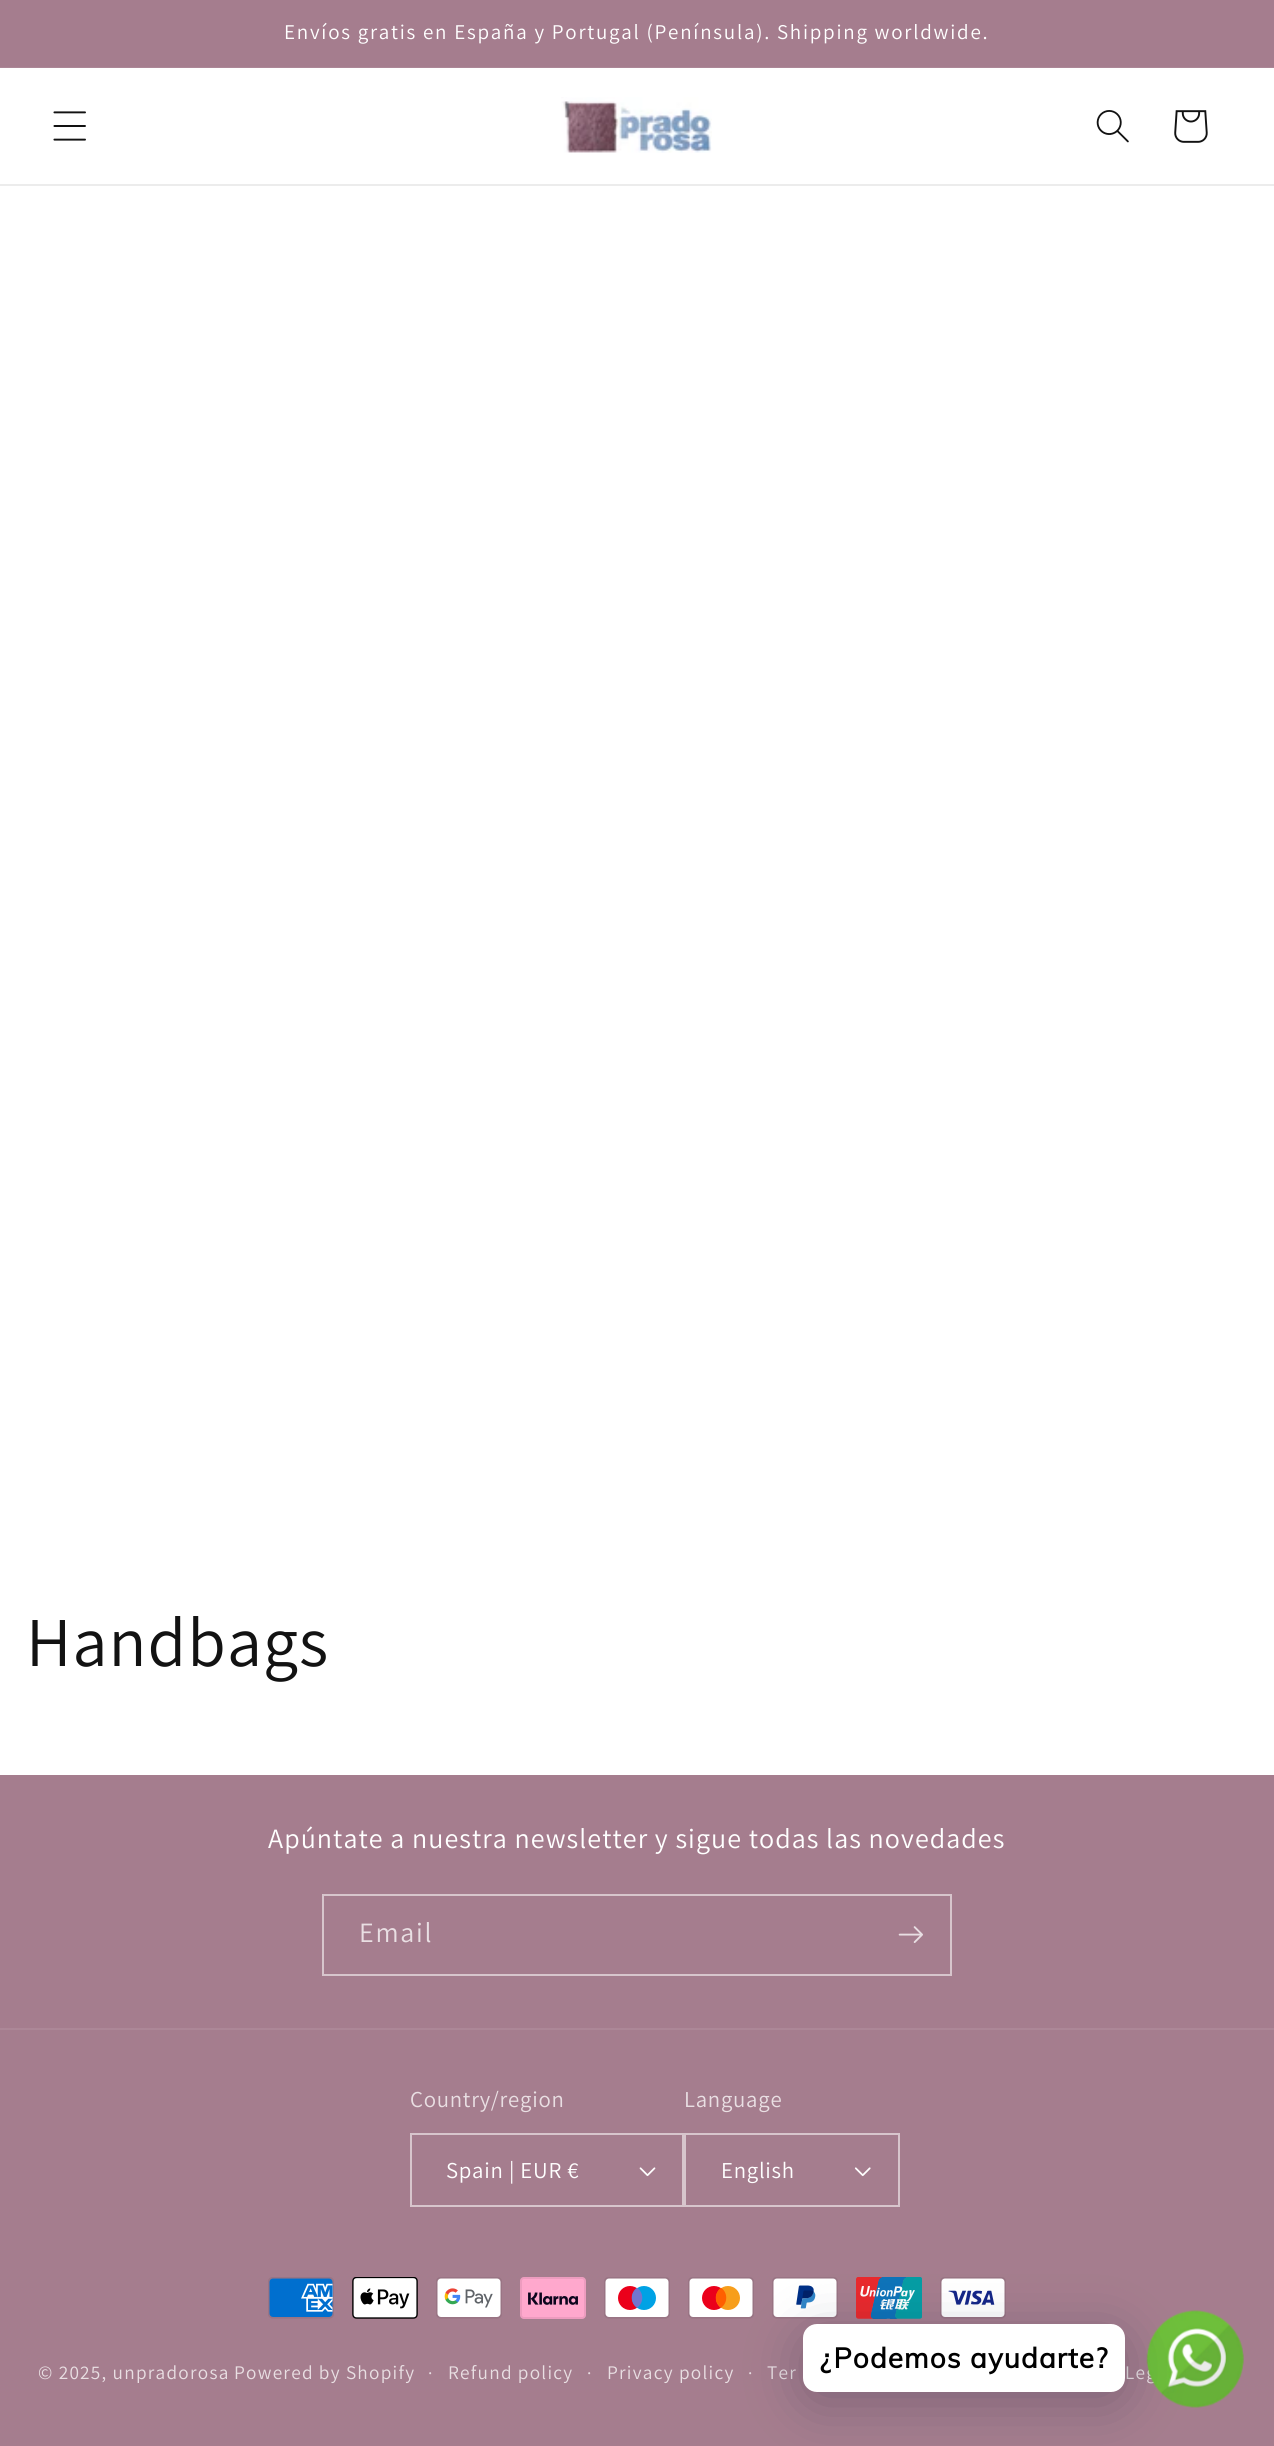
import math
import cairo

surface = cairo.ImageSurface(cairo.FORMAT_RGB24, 1274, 2446)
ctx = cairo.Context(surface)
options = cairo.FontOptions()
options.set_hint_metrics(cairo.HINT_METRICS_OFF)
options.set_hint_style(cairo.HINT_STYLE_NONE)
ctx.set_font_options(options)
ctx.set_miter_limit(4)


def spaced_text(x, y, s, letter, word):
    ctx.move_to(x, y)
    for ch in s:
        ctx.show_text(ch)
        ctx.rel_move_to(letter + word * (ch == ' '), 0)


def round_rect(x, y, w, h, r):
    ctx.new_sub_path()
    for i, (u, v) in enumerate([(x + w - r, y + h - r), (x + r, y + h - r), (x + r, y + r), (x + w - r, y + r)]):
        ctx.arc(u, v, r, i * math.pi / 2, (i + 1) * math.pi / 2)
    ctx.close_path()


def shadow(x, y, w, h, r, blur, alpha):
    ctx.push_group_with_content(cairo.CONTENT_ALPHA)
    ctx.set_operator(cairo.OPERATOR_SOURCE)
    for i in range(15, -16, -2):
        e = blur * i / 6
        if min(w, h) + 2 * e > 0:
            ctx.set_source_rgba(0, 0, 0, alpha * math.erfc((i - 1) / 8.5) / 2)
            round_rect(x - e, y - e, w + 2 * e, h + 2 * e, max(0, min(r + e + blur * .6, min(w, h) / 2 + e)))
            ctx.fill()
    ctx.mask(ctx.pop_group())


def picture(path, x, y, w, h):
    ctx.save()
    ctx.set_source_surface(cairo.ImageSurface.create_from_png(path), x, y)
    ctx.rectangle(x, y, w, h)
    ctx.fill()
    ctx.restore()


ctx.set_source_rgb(1, 1, 1)
ctx.paint()
ctx.set_source_rgb(0.647, 0.49, 0.557)
ctx.rectangle(0, 0, 1274, 67)
ctx.fill()
ctx.set_source_rgb(0.675, 0.529, 0.592)
ctx.rectangle(0, 67, 1274, 1)
ctx.fill()
ctx.select_font_face("Assistant")
ctx.set_font_size(21)
ctx.set_source_rgb(1, 1, 1)
spaced_text(284, 39, "Envíos gratis en España y Portugal (Península). Shipping worldwide.", 1.75, 0)
ctx.set_source_rgb(0.925, 0.925, 0.925)
ctx.rectangle(0, 184, 1274, 2)
ctx.fill()
picture("img1.png", 53, 111, 33, 30)
picture("img2.png", 561, 97, 151, 56)
picture("img3.png", 1096, 110, 33, 33)
picture("img4.png", 1174, 110, 34, 33)
ctx.set_font_size(70)
ctx.set_source_rgb(0.071, 0.071, 0.071)
spaced_text(26, 1666, "Handbags", 1.05, 0)
ctx.set_source_rgb(0.647, 0.49, 0.557)
ctx.rectangle(0, 1775, 1274, 671)
ctx.fill()
ctx.set_font_size(28)
ctx.set_source_rgb(1, 1, 1)
spaced_text(268, 1848, "Apúntate a nuestra newsletter y sigue todas las novedades", 1.05, 0)
ctx.rectangle(323, 1895, 628, 80)
ctx.set_source_rgb(0.843, 0.773, 0.8)
ctx.stroke()
ctx.set_source_rgb(0.914, 0.875, 0.89)
spaced_text(359, 1942, "Email", 1.75, 0)
picture("img5.png", 898, 1926, 25, 17)
ctx.set_source_rgb(0.675, 0.529, 0.592)
ctx.rectangle(0, 2028, 1274, 2)
ctx.fill()
ctx.set_font_size(22.75)
ctx.set_source_rgb(0.914, 0.875, 0.89)
spaced_text(410, 2107, "Country/region", 0.75, 0)
picture("img6.png", 639, 2167, 17, 10)
ctx.rectangle(411, 2134, 272, 72)
ctx.set_source_rgb(0.843, 0.773, 0.8)
ctx.stroke()
ctx.set_source_rgb(1, 1, 1)
spaced_text(446, 2178, "Spain | EUR €", 0.75, 0)
ctx.set_source_rgb(0.914, 0.875, 0.89)
spaced_text(684, 2107, "Language", 0.75, 0)
picture("img7.png", 854, 2167, 17, 10)
ctx.rectangle(685, 2134, 214, 72)
ctx.set_source_rgb(0.843, 0.773, 0.8)
ctx.stroke()
ctx.set_source_rgb(1, 1, 1)
spaced_text(721, 2178, "English", 0.75, 0)
picture("img8.png", 268, 2277, 66, 42)
picture("img9.png", 352, 2277, 66, 42)
picture("img10.png", 436, 2277, 66, 42)
picture("img11.png", 520, 2277, 66, 42)
picture("img12.png", 604, 2277, 66, 42)
picture("img13.png", 688, 2277, 66, 42)
picture("img14.png", 772, 2277, 66, 42)
picture("img15.png", 856, 2277, 66, 42)
picture("img16.png", 940, 2277, 66, 42)
ctx.set_font_size(19.25)
ctx.set_source_rgb(0.914, 0.875, 0.89)
spaced_text(38, 2379, "© 2025, unpradorosa", 1.25, 0)
spaced_text(234, 2379, "Powered by Shopify", 1.25, 0)
ctx.set_font_size(18)
spaced_text(428, 2379, "·", 1.25, 0)
ctx.set_font_size(19.25)
spaced_text(448, 2379, "Refund policy", 1.25, 0)
ctx.set_font_size(18)
spaced_text(587, 2379, "·", 1.25, 0)
ctx.set_font_size(19.25)
spaced_text(607, 2379, "Privacy policy", 1.25, 0)
ctx.set_font_size(18)
spaced_text(748, 2379, "·", 1.25, 0)
ctx.set_font_size(19.25)
spaced_text(767, 2379, "Ter", 1.25, 0)
spaced_text(1125, 2379, "Leg", 1.25, 0)
picture("img17.png", 1146, 2310, 98, 98)
ctx.set_source_rgb(0, 0.071, 0.18)
shadow(803, 2335, 322, 68, 14, 28, 0.24)
ctx.set_source_rgb(1, 1, 1)
round_rect(803, 2324, 322, 68, 14)
ctx.fill()
ctx.select_font_face("Muli", cairo.FONT_SLANT_NORMAL, cairo.FONT_WEIGHT_BOLD)
ctx.set_font_size(28)
ctx.set_source_rgb(0, 0, 0)
spaced_text(820, 2368, "¿Podemos ayudarte?", 1.05, 0)
surface.write_to_png("page.png")
